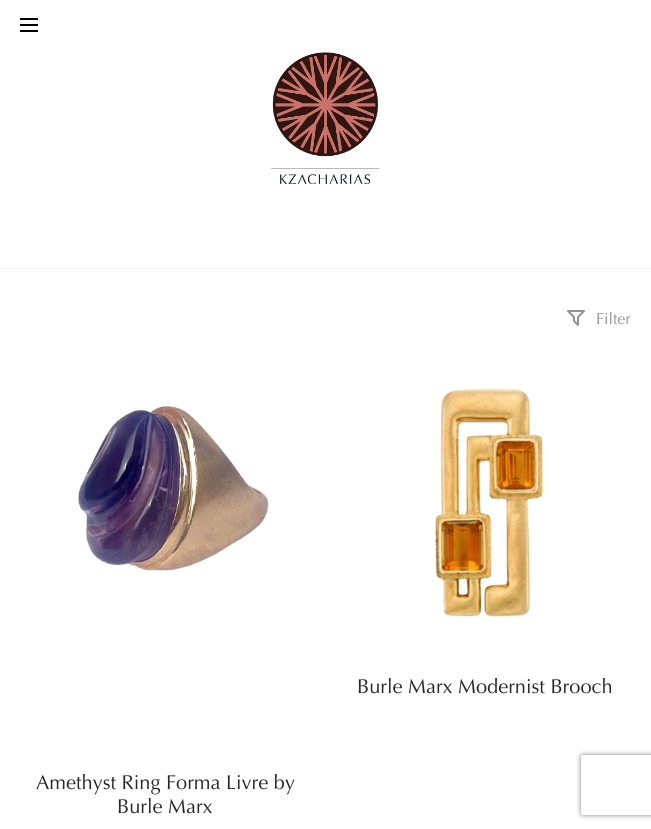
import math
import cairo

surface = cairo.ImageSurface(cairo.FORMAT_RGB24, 651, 829)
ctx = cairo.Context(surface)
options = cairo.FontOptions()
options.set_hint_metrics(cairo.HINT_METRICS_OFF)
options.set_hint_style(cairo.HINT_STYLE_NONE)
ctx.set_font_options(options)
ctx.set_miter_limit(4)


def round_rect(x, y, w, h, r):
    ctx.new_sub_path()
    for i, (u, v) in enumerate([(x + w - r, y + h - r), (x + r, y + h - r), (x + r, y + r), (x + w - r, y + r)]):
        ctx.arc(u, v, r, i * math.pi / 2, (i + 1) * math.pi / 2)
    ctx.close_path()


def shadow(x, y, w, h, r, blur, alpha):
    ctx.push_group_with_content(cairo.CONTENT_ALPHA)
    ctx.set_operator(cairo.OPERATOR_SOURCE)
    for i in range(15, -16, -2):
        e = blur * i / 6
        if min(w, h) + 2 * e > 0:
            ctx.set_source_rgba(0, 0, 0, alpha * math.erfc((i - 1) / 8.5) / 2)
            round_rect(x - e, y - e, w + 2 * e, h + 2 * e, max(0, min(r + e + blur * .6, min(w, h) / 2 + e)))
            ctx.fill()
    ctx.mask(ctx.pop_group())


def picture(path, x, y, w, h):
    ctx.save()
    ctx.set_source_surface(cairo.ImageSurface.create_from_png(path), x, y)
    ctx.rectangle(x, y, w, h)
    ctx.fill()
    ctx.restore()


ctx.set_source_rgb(1, 1, 1)
ctx.paint()
ctx.set_source_rgb(0.945, 0.949, 0.957)
ctx.rectangle(0, 268, 651, 1)
ctx.fill()
ctx.set_source_rgb(0, 0, 0)
ctx.rectangle(20, 24, 18, 2)
ctx.fill()
ctx.rectangle(20, 18, 18, 2)
ctx.fill()
ctx.rectangle(20, 30, 18, 2)
ctx.fill()
picture("img1.png", 271, 52, 109, 132)
ctx.new_path()
ctx.move_to(578, 317)
ctx.line_to(578, 325)
ctx.line_to(574, 321)
ctx.line_to(574, 317)
ctx.line_to(568, 311)
ctx.line_to(584, 311)
ctx.close_path()
ctx.set_source_rgb(0.565, 0.565, 0.592)
ctx.set_line_join(cairo.LINE_JOIN_ROUND)
ctx.stroke()
ctx.select_font_face("Optima")
ctx.set_font_size(16)
ctx.move_to(596, 324)
ctx.show_text("Filter")
picture("img2.png", 435, 388, 108, 229)
ctx.set_font_size(20)
ctx.set_source_rgb(0.137, 0.137, 0.173)
ctx.move_to(357, 693)
ctx.show_text("Burle Marx Modernist Brooch")
picture("img3.png", 78, 406, 191, 165)
ctx.move_to(36, 789)
ctx.show_text("Amethyst Ring Forma Livre by")
ctx.move_to(117, 813)
ctx.show_text("Burle Marx")
ctx.save()
ctx.set_fill_rule(cairo.FILL_RULE_EVEN_ODD)
ctx.new_path()
ctx.move_to(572, 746)
ctx.line_to(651, 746)
ctx.line_to(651, 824)
ctx.line_to(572, 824)
ctx.close_path()
ctx.move_to(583, 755)
ctx.line_to(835, 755)
ctx.curve_to(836, 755, 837, 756, 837, 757)
ctx.line_to(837, 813)
ctx.curve_to(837, 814, 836, 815, 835, 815)
ctx.line_to(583, 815)
ctx.curve_to(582, 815, 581, 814, 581, 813)
ctx.line_to(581, 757)
ctx.curve_to(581, 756, 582, 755, 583, 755)
ctx.close_path()
ctx.clip()
ctx.set_source_rgb(0.502, 0.502, 0.502)
shadow(581, 755, 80, 60, 2, 2.5, 1)
ctx.restore()
surface.write_to_png("page.png")
